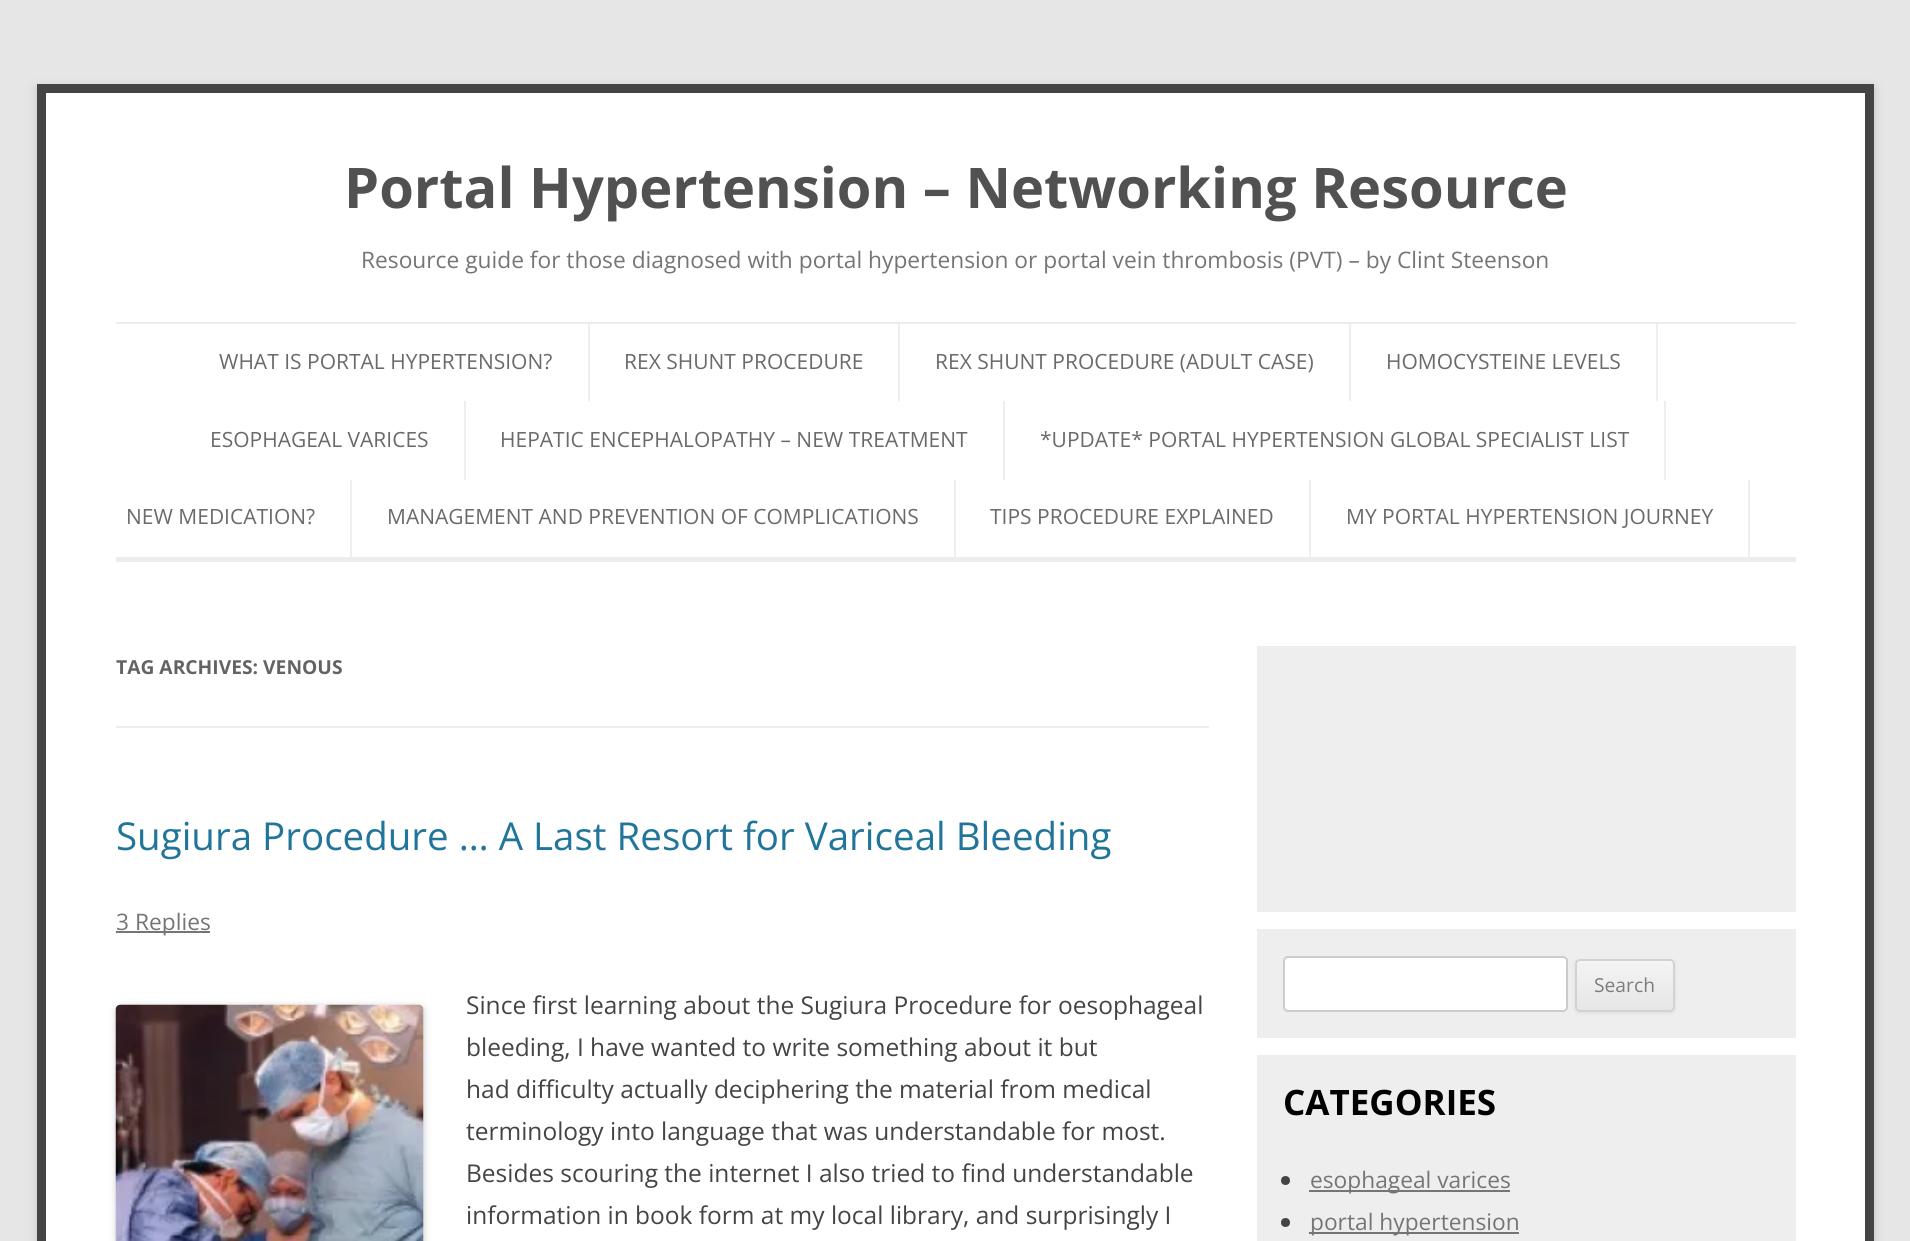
import math
import cairo

surface = cairo.ImageSurface(cairo.FORMAT_RGB24, 1910, 1241)
ctx = cairo.Context(surface)
options = cairo.FontOptions()
options.set_hint_metrics(cairo.HINT_METRICS_OFF)
options.set_hint_style(cairo.HINT_STYLE_NONE)
ctx.set_font_options(options)
ctx.set_miter_limit(4)


def round_rect(x, y, w, h, r):
    ctx.new_sub_path()
    for i, (u, v) in enumerate([(x + w - r, y + h - r), (x + r, y + h - r), (x + r, y + r), (x + w - r, y + r)]):
        ctx.arc(u, v, r, i * math.pi / 2, (i + 1) * math.pi / 2)
    ctx.close_path()


def shadow(x, y, w, h, r, blur, alpha):
    ctx.push_group_with_content(cairo.CONTENT_ALPHA)
    ctx.set_operator(cairo.OPERATOR_SOURCE)
    for i in range(15, -16, -2):
        e = blur * i / 6
        if min(w, h) + 2 * e > 0:
            ctx.set_source_rgba(0, 0, 0, alpha * math.erfc((i - 1) / 8.5) / 2)
            round_rect(x - e, y - e, w + 2 * e, h + 2 * e, max(0, min(r + e + blur * .6, min(w, h) / 2 + e)))
            ctx.fill()
    ctx.mask(ctx.pop_group())


def picture(path, x, y, w, h):
    ctx.save()
    ctx.set_source_surface(cairo.ImageSurface.create_from_png(path), x, y)
    ctx.rectangle(x, y, w, h)
    ctx.fill()
    ctx.restore()


ctx.set_source_rgb(0.902, 0.902, 0.902)
ctx.paint()
ctx.set_source_rgb(0.392, 0.392, 0.392)
shadow(37, 88, 1837, 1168, 0, 5, 0.3)
ctx.set_source_rgb(1, 1, 1)
ctx.rectangle(41.5, 88.5, 1828, 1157)
ctx.fill_preserve()
ctx.set_source_rgb(0.267, 0.267, 0.267)
ctx.set_line_width(9)
ctx.stroke()
ctx.select_font_face("Open Sans", cairo.FONT_SLANT_NORMAL, cairo.FONT_WEIGHT_BOLD)
ctx.set_font_size(56)
ctx.set_source_rgb(0.318, 0.318, 0.318)
ctx.move_to(344, 208)
ctx.show_text("Portal Hypertension – Networking Resource")
ctx.select_font_face("Open Sans")
ctx.set_font_size(22.75)
ctx.set_source_rgb(0.459, 0.459, 0.459)
ctx.move_to(361, 268)
ctx.show_text("Resource guide for those diagnosed with portal hypertension or portal vein thrombosis (PVT) – by Clint Steenson")
ctx.set_source_rgb(0.929, 0.929, 0.929)
ctx.rectangle(116, 322, 1680, 2)
ctx.fill()
ctx.rectangle(116, 557, 1680, 5)
ctx.fill()
ctx.set_source_rgb(0.933, 0.933, 0.933)
ctx.rectangle(588, 324, 2, 77)
ctx.fill()
ctx.set_font_size(21)
ctx.set_source_rgb(0.416, 0.416, 0.416)
ctx.move_to(219, 369)
ctx.show_text("WHAT IS PORTAL HYPERTENSION?")
ctx.set_source_rgb(0.933, 0.933, 0.933)
ctx.rectangle(898, 324, 2, 77)
ctx.fill()
ctx.set_source_rgb(0.416, 0.416, 0.416)
ctx.move_to(624, 369)
ctx.show_text("REX SHUNT PROCEDURE")
ctx.set_source_rgb(0.933, 0.933, 0.933)
ctx.rectangle(1349, 324, 2, 77)
ctx.fill()
ctx.set_source_rgb(0.416, 0.416, 0.416)
ctx.move_to(935, 369)
ctx.show_text("REX SHUNT PROCEDURE (ADULT CASE)")
ctx.set_source_rgb(0.933, 0.933, 0.933)
ctx.rectangle(1656, 324, 2, 77)
ctx.fill()
ctx.set_source_rgb(0.416, 0.416, 0.416)
ctx.move_to(1386, 369)
ctx.show_text("HOMOCYSTEINE LEVELS")
ctx.set_source_rgb(0.933, 0.933, 0.933)
ctx.rectangle(464, 401, 2, 79)
ctx.fill()
ctx.set_source_rgb(0.416, 0.416, 0.416)
ctx.move_to(210, 447)
ctx.show_text("ESOPHAGEAL VARICES")
ctx.set_source_rgb(0.933, 0.933, 0.933)
ctx.rectangle(1003, 401, 2, 79)
ctx.fill()
ctx.set_source_rgb(0.416, 0.416, 0.416)
ctx.move_to(500, 447)
ctx.show_text("HEPATIC ENCEPHALOPATHY – NEW TREATMENT")
ctx.set_source_rgb(0.933, 0.933, 0.933)
ctx.rectangle(1664, 401, 2, 79)
ctx.fill()
ctx.set_source_rgb(0.416, 0.416, 0.416)
ctx.move_to(1040, 447)
ctx.show_text("*UPDATE* PORTAL HYPERTENSION GLOBAL SPECIALIST LIST")
ctx.set_source_rgb(0.933, 0.933, 0.933)
ctx.rectangle(350, 480, 2, 77)
ctx.fill()
ctx.set_source_rgb(0.416, 0.416, 0.416)
ctx.move_to(126, 524)
ctx.show_text("NEW MEDICATION?")
ctx.set_source_rgb(0.933, 0.933, 0.933)
ctx.rectangle(954, 480, 2, 77)
ctx.fill()
ctx.set_source_rgb(0.416, 0.416, 0.416)
ctx.move_to(387, 524)
ctx.show_text("MANAGEMENT AND PREVENTION OF COMPLICATIONS")
ctx.set_source_rgb(0.933, 0.933, 0.933)
ctx.rectangle(1309, 480, 2, 77)
ctx.fill()
ctx.set_source_rgb(0.416, 0.416, 0.416)
ctx.move_to(990, 524)
ctx.show_text("TIPS PROCEDURE EXPLAINED")
ctx.set_source_rgb(0.933, 0.933, 0.933)
ctx.rectangle(1748, 480, 2, 77)
ctx.fill()
ctx.set_source_rgb(0.416, 0.416, 0.416)
ctx.move_to(1346, 524)
ctx.show_text("MY PORTAL HYPERTENSION JOURNEY")
ctx.set_source_rgb(0.929, 0.929, 0.929)
ctx.rectangle(116, 726, 1093, 2)
ctx.fill()
ctx.select_font_face("Open Sans", cairo.FONT_SLANT_NORMAL, cairo.FONT_WEIGHT_BOLD)
ctx.set_font_size(19.25)
ctx.set_source_rgb(0.388, 0.388, 0.388)
ctx.move_to(116, 674)
ctx.show_text("TAG ARCHIVES: VENOUS")
ctx.select_font_face("Open Sans")
ctx.set_font_size(38.5)
ctx.set_source_rgb(0.129, 0.459, 0.608)
ctx.move_to(116, 850)
ctx.show_text("Sugiura Procedure … A Last Resort for Variceal Bleeding")
ctx.set_source_rgb(0.459, 0.459, 0.459)
ctx.rectangle(116, 931, 94, 2)
ctx.fill()
ctx.set_font_size(22.75)
ctx.move_to(116, 930)
ctx.show_text("3 Replies")
ctx.set_source_rgb(0, 0, 0)
shadow(116, 1006, 308, 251, 5, 3.5, 0.2)
picture("img1.png", 115, 1004, 309, 237)
ctx.set_font_size(24.5)
ctx.set_source_rgb(0.267, 0.267, 0.267)
ctx.move_to(466, 1014)
ctx.show_text("Since first learning about the Sugiura Procedure for oesophageal")
ctx.move_to(466, 1056)
ctx.show_text("bleeding, I have wanted to write something about it but")
ctx.move_to(466, 1098)
ctx.show_text("had difficulty actually deciphering the material from medical")
ctx.move_to(466, 1140)
ctx.show_text("terminology into language that was understandable for most.")
ctx.move_to(466, 1182)
ctx.show_text("Besides scouring the internet I also tried to find understandable")
ctx.move_to(466, 1224)
ctx.show_text("information in book form at my local library, and surprisingly I")
ctx.set_source_rgb(0.933, 0.933, 0.933)
ctx.rectangle(1257, 646, 539, 266)
ctx.fill()
ctx.rectangle(1257, 929, 539, 109)
ctx.fill()
ctx.set_source_rgb(1, 1, 1)
round_rect(1284, 957, 283, 54, 4)
ctx.fill_preserve()
ctx.set_source_rgb(0.8, 0.8, 0.8)
ctx.set_line_width(2)
ctx.stroke()
ctx.set_source_rgb(0.251, 0.251, 0.251)
shadow(1575, 961, 100, 52, 5, 2, 0.1)
ctx.save()
round_rect(1575, 959, 100, 53, 5)
ctx.clip()
gradient = cairo.LinearGradient(1625, 961, 1625, 1010)
gradient.add_color_stop_rgba(0, 0.957, 0.957, 0.957, 1)
gradient.add_color_stop_rgba(1, 0.902, 0.902, 0.902, 1)
ctx.set_source(gradient)
ctx.rectangle(1575, 961, 100, 49)
ctx.fill()
ctx.restore()
round_rect(1576, 960, 98, 51, 4)
ctx.set_source_rgb(0.824, 0.824, 0.824)
ctx.stroke()
ctx.set_font_size(19.25)
ctx.set_source_rgb(0.486, 0.486, 0.486)
ctx.move_to(1594, 992)
ctx.show_text("Search")
ctx.set_source_rgb(0.933, 0.933, 0.933)
ctx.rectangle(1257, 1055, 539, 186)
ctx.fill()
ctx.select_font_face("Open Sans", cairo.FONT_SLANT_NORMAL, cairo.FONT_WEIGHT_BOLD)
ctx.set_font_size(35)
ctx.set_source_rgb(0, 0, 0)
ctx.move_to(1283, 1115)
ctx.show_text("CATEGORIES")
ctx.set_source_rgb(0.267, 0.267, 0.267)
ctx.new_path()
ctx.arc(1285.5, 1180.5, 4.5, 0, 2 * math.pi)
ctx.fill()
ctx.set_source_rgb(0.459, 0.459, 0.459)
ctx.rectangle(1309, 1190, 201, 2)
ctx.fill()
ctx.select_font_face("Open Sans")
ctx.set_font_size(22.75)
ctx.move_to(1310, 1188)
ctx.show_text("esophageal varices")
ctx.set_source_rgb(0.267, 0.267, 0.267)
ctx.new_path()
ctx.arc(1285.5, 1222.5, 4.5, 0, 2 * math.pi)
ctx.fill()
ctx.set_source_rgb(0.459, 0.459, 0.459)
ctx.rectangle(1309, 1232, 210, 2)
ctx.fill()
ctx.move_to(1310, 1230)
ctx.show_text("portal hypertension")
surface.write_to_png("page.png")
